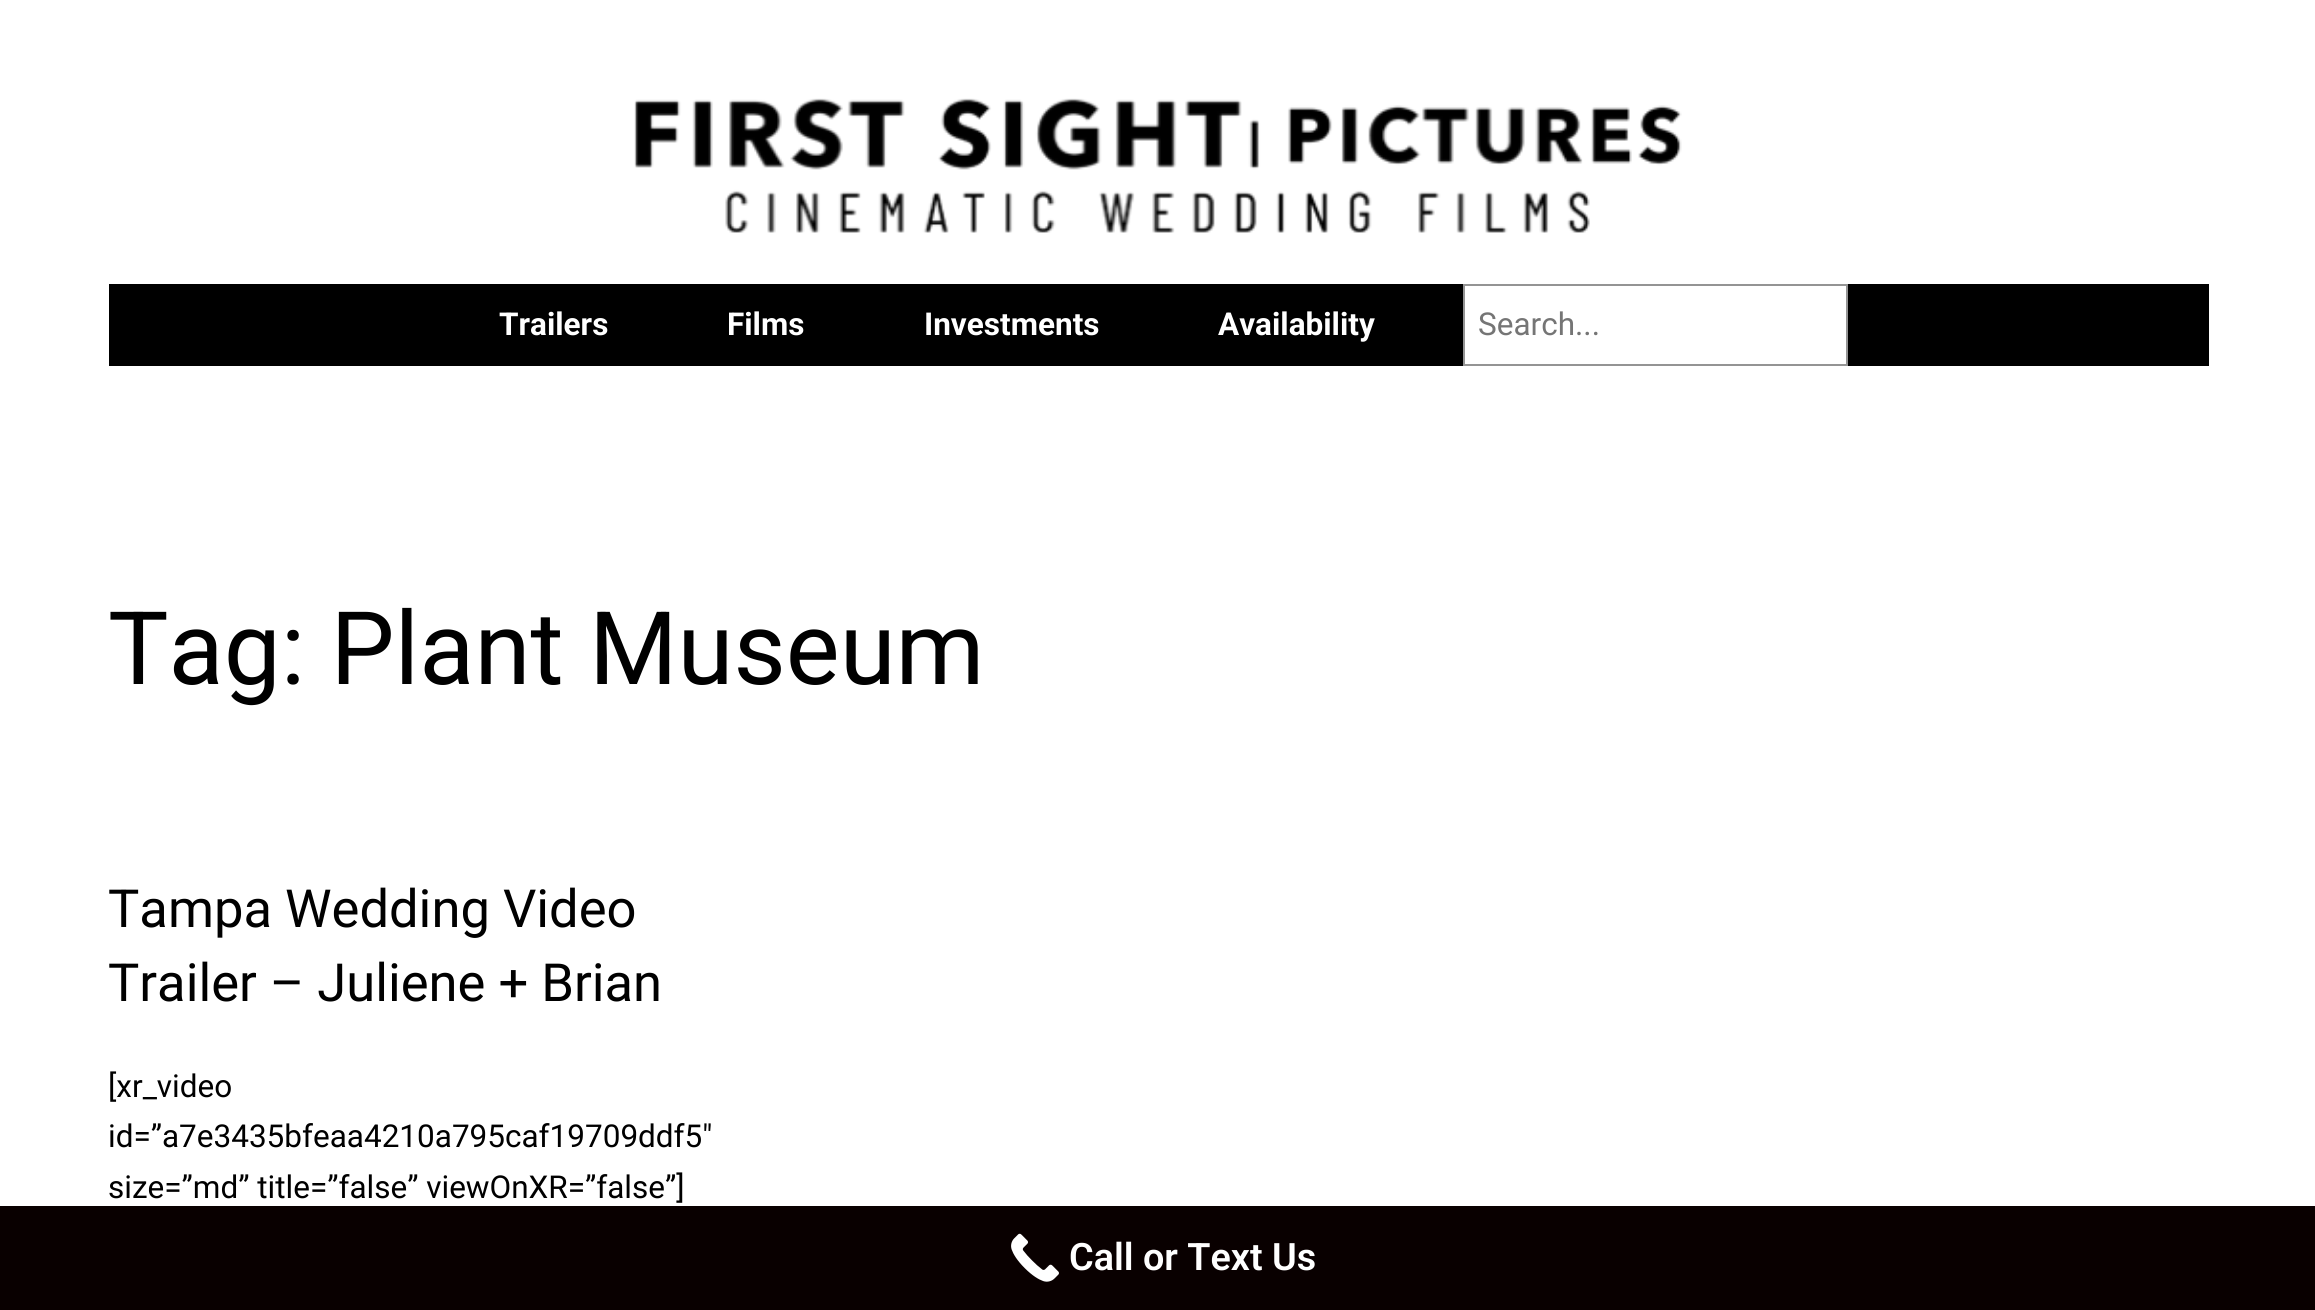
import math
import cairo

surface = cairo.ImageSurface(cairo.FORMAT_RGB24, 2315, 1310)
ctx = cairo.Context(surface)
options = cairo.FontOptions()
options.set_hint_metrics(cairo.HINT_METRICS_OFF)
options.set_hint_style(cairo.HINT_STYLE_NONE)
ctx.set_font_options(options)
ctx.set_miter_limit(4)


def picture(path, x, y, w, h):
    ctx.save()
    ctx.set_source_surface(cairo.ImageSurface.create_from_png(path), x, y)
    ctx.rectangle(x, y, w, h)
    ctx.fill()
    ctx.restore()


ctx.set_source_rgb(1, 1, 1)
ctx.paint()
picture("img1.png", 634, 98, 1048, 135)
ctx.set_source_rgb(0, 0, 0)
ctx.rectangle(109, 284, 2100, 82)
ctx.fill()
ctx.select_font_face("Roboto", cairo.FONT_SLANT_NORMAL, cairo.FONT_WEIGHT_BOLD)
ctx.set_font_size(31.5)
ctx.set_source_rgb(1, 1, 1)
ctx.move_to(499, 335)
ctx.show_text("Trailers")
ctx.move_to(727, 335)
ctx.show_text("Films")
ctx.move_to(924, 335)
ctx.show_text("Investments")
ctx.move_to(1218, 335)
ctx.show_text("Availability")
ctx.rectangle(1464, 285, 383, 80)
ctx.fill_preserve()
ctx.set_source_rgb(0.58, 0.58, 0.58)
ctx.stroke()
ctx.select_font_face("Roboto")
ctx.set_source_rgb(0.459, 0.459, 0.459)
ctx.move_to(1478, 335)
ctx.show_text("Search...")
ctx.set_font_size(101.5)
ctx.set_source_rgb(0, 0, 0)
ctx.move_to(108, 684)
ctx.show_text("Tag: Plant Museum")
ctx.set_font_size(52.5)
ctx.move_to(108, 927)
ctx.show_text("Tampa Wedding Video")
ctx.move_to(108, 1001)
ctx.show_text("Trailer – Juliene + Brian")
ctx.set_font_size(31.5)
ctx.move_to(108, 1097)
ctx.show_text("[xr_video")
ctx.move_to(108, 1147)
ctx.show_text("id=”a7e3435bfeaa4210a795caf19709ddf5″")
ctx.move_to(108, 1198)
ctx.show_text("size=”md” title=”false” viewOnXR=”false”]")
ctx.set_source_rgb(0.039, 0, 0)
ctx.rectangle(0, 1206, 2315, 104)
ctx.fill()
picture("img2.png", 1011, 1233, 48, 49)
ctx.select_font_face("Roboto SemiBold")
ctx.set_font_size(37.75)
ctx.set_source_rgb(1, 1, 1)
ctx.move_to(1069, 1270)
ctx.show_text("Call or Text Us")
surface.write_to_png("page.png")
